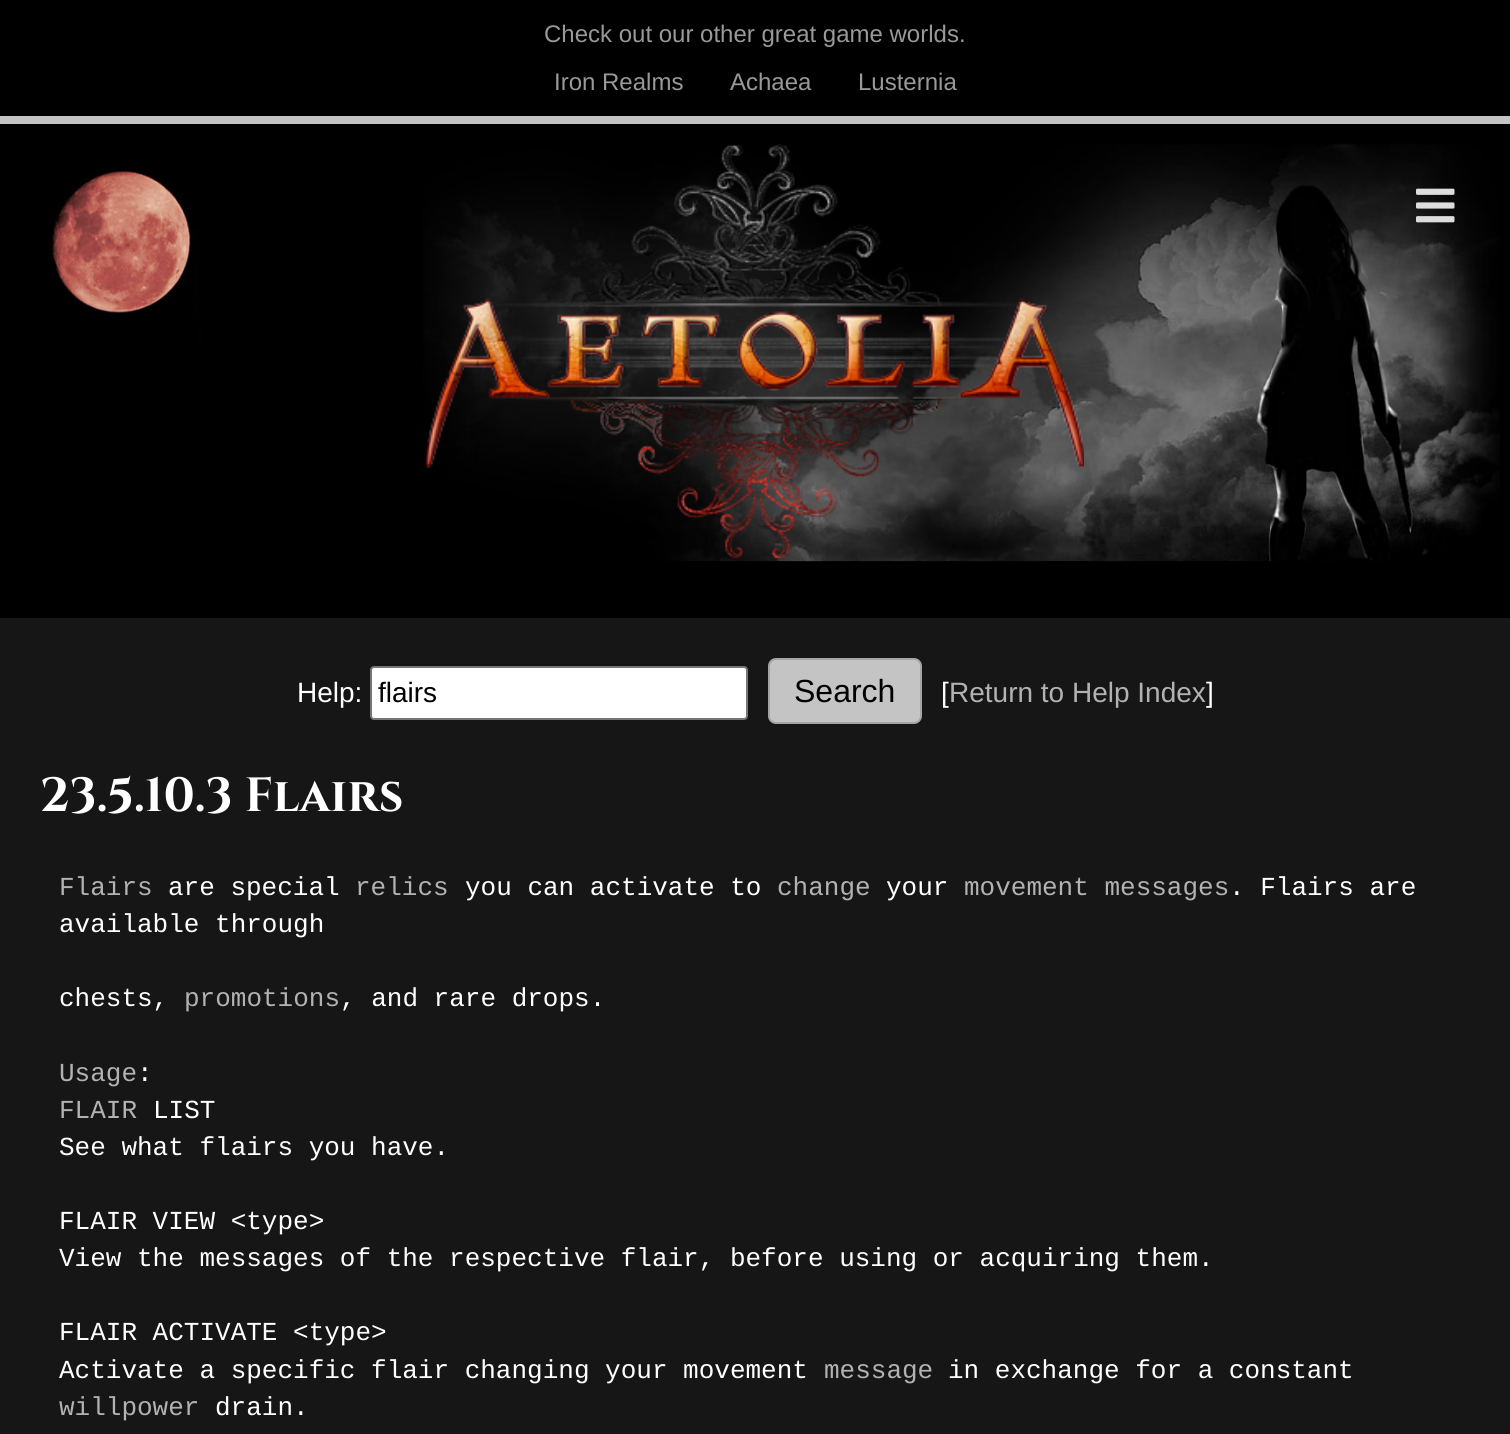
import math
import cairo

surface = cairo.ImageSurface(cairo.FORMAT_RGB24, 1510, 1434)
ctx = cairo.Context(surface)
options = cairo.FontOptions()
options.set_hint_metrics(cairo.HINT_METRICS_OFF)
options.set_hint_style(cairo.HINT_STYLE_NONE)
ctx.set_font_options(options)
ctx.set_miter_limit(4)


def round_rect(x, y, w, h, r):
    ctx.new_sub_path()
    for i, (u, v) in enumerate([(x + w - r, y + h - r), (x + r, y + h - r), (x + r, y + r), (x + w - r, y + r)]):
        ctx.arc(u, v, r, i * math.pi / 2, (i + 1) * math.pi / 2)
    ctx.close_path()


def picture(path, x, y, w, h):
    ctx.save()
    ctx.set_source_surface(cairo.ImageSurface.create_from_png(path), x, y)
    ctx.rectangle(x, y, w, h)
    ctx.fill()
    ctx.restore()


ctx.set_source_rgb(0, 0, 0)
ctx.paint()
ctx.set_source_rgb(0.769, 0.769, 0.769)
ctx.rectangle(0, 116, 1510, 8)
ctx.fill()
ctx.select_font_face("Liberation Sans")
ctx.set_font_size(24)
ctx.set_source_rgb(0.6, 0.6, 0.6)
ctx.move_to(544, 42)
ctx.show_text("Check out our other great game worlds.")
ctx.move_to(554, 90)
ctx.show_text("Iron Realms")
ctx.move_to(730, 90)
ctx.show_text("Achaea")
ctx.move_to(858, 90)
ctx.show_text("Lusternia")
picture("img1.png", 49, 143, 1451, 419)
picture("img2.png", 426, 144, 658, 414)
picture("img3.png", 1416, 188, 39, 35)
ctx.set_source_rgb(0.086, 0.086, 0.086)
ctx.rectangle(0, 618, 1510, 816)
ctx.fill()
ctx.set_font_size(28)
ctx.set_source_rgb(1, 1, 1)
ctx.move_to(297, 702)
ctx.show_text("Help:")
round_rect(371, 667, 376, 52, 3)
ctx.fill_preserve()
ctx.set_source_rgb(0.463, 0.463, 0.463)
ctx.stroke()
ctx.set_source_rgb(0, 0, 0)
ctx.move_to(378, 702)
ctx.show_text("flairs")
ctx.set_source_rgb(0.769, 0.769, 0.769)
round_rect(769, 659, 152, 64, 7)
ctx.fill_preserve()
ctx.set_source_rgb(0.647, 0.647, 0.647)
ctx.stroke()
ctx.set_font_size(32)
ctx.set_source_rgb(0, 0, 0)
ctx.move_to(794, 702)
ctx.show_text("Search")
ctx.set_font_size(28)
ctx.set_source_rgb(1, 1, 1)
ctx.move_to(941, 702)
ctx.show_text("[")
ctx.set_source_rgb(0.698, 0.698, 0.698)
ctx.move_to(949, 702)
ctx.show_text("Return to Help Index")
ctx.set_source_rgb(1, 1, 1)
ctx.move_to(1206, 702)
ctx.show_text("]")
ctx.select_font_face("Cinzel", cairo.FONT_SLANT_NORMAL, cairo.FONT_WEIGHT_BOLD)
ctx.set_font_size(48)
ctx.move_to(40, 811)
ctx.show_text("23.5.10.3 Flairs")
ctx.select_font_face("Liberation Mono")
ctx.set_font_size(26)
ctx.set_source_rgb(0.698, 0.698, 0.698)
ctx.move_to(59, 895)
ctx.show_text("Flairs")
ctx.set_source_rgb(1, 1, 1)
ctx.move_to(168, 895)
ctx.show_text("are special")
ctx.set_source_rgb(0.698, 0.698, 0.698)
ctx.move_to(355, 895)
ctx.show_text("relics")
ctx.set_source_rgb(1, 1, 1)
ctx.move_to(465, 895)
ctx.show_text("you can activate to")
ctx.set_source_rgb(0.698, 0.698, 0.698)
ctx.move_to(777, 895)
ctx.show_text("change")
ctx.set_source_rgb(1, 1, 1)
ctx.move_to(886, 895)
ctx.show_text("your")
ctx.set_source_rgb(0.698, 0.698, 0.698)
ctx.move_to(964, 895)
ctx.show_text("movement messages")
ctx.set_source_rgb(1, 1, 1)
ctx.move_to(1229, 895)
ctx.show_text(". Flairs are")
ctx.move_to(59, 932)
ctx.show_text("available through")
ctx.move_to(59, 1006)
ctx.show_text("chests,")
ctx.set_source_rgb(0.698, 0.698, 0.698)
ctx.move_to(184, 1006)
ctx.show_text("promotions")
ctx.set_source_rgb(1, 1, 1)
ctx.move_to(340, 1006)
ctx.show_text(", and rare drops.")
ctx.set_source_rgb(0.698, 0.698, 0.698)
ctx.move_to(59, 1081)
ctx.show_text("Usage")
ctx.set_source_rgb(1, 1, 1)
ctx.move_to(137, 1081)
ctx.show_text(":")
ctx.set_source_rgb(0.698, 0.698, 0.698)
ctx.move_to(59, 1118)
ctx.show_text("FLAIR")
ctx.set_source_rgb(1, 1, 1)
ctx.move_to(153, 1118)
ctx.show_text("LIST")
ctx.move_to(59, 1155)
ctx.show_text("See what flairs you have.")
ctx.move_to(59, 1229)
ctx.show_text("FLAIR VIEW <type>")
ctx.move_to(59, 1266)
ctx.show_text("View the messages of the respective flair, before using or acquiring them.")
ctx.move_to(59, 1340)
ctx.show_text("FLAIR ACTIVATE <type>")
ctx.move_to(59, 1378)
ctx.show_text("Activate a specific flair changing your movement")
ctx.set_source_rgb(0.698, 0.698, 0.698)
ctx.move_to(824, 1378)
ctx.show_text("message")
ctx.set_source_rgb(1, 1, 1)
ctx.move_to(948, 1378)
ctx.show_text("in exchange for a constant")
ctx.set_source_rgb(0.698, 0.698, 0.698)
ctx.move_to(59, 1415)
ctx.show_text("willpower")
ctx.set_source_rgb(1, 1, 1)
ctx.move_to(215, 1415)
ctx.show_text("drain.")
surface.write_to_png("page.png")
